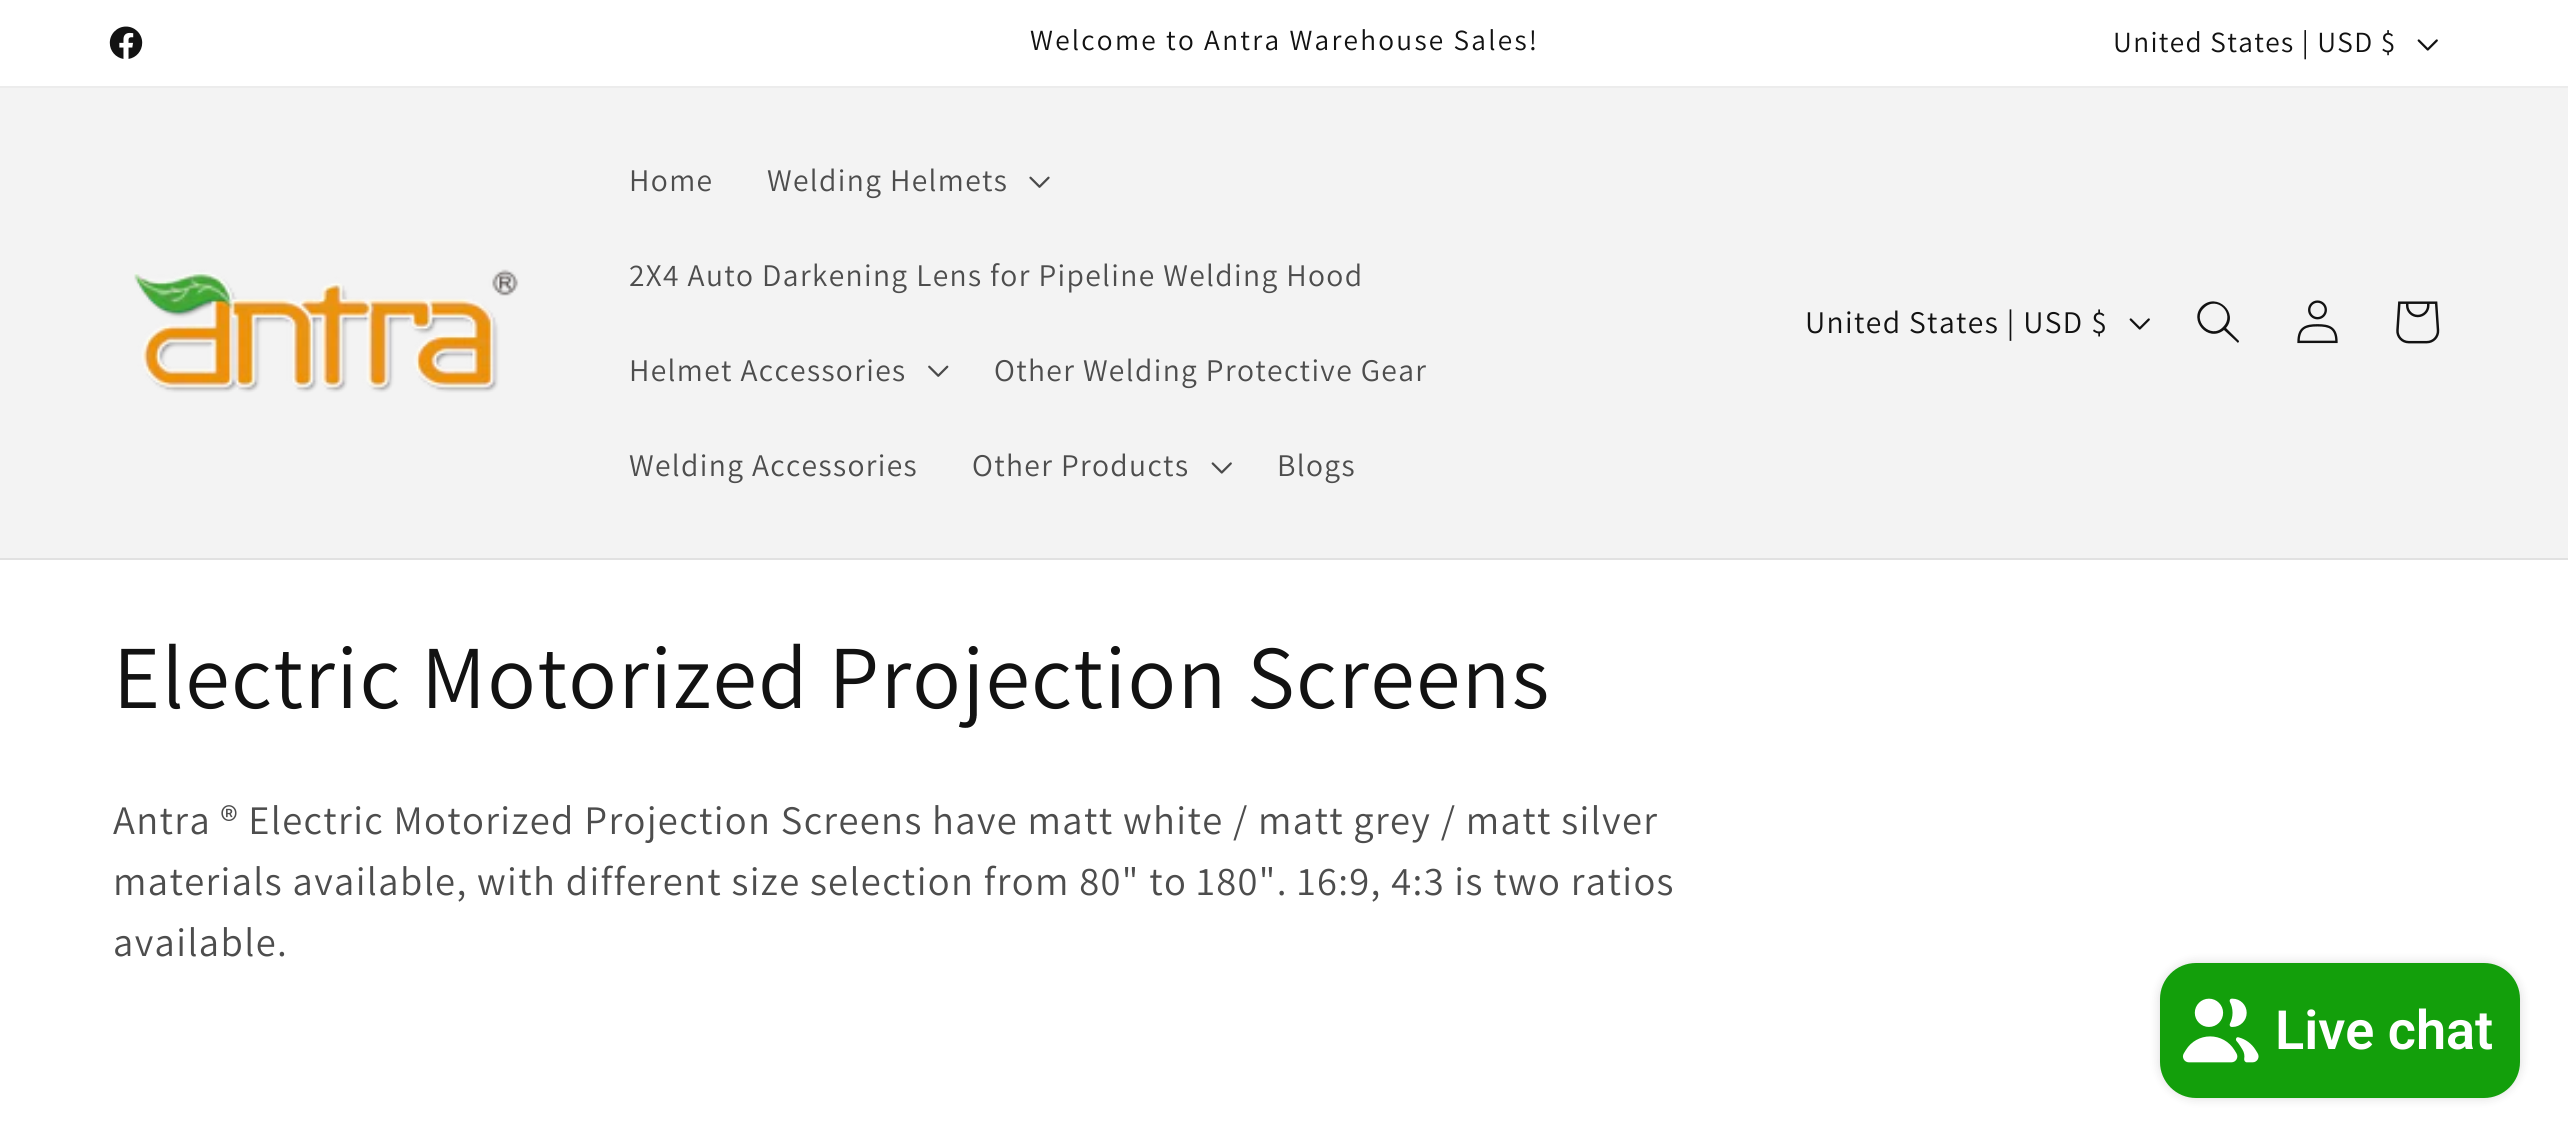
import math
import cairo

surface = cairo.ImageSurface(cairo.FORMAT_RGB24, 2568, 1145)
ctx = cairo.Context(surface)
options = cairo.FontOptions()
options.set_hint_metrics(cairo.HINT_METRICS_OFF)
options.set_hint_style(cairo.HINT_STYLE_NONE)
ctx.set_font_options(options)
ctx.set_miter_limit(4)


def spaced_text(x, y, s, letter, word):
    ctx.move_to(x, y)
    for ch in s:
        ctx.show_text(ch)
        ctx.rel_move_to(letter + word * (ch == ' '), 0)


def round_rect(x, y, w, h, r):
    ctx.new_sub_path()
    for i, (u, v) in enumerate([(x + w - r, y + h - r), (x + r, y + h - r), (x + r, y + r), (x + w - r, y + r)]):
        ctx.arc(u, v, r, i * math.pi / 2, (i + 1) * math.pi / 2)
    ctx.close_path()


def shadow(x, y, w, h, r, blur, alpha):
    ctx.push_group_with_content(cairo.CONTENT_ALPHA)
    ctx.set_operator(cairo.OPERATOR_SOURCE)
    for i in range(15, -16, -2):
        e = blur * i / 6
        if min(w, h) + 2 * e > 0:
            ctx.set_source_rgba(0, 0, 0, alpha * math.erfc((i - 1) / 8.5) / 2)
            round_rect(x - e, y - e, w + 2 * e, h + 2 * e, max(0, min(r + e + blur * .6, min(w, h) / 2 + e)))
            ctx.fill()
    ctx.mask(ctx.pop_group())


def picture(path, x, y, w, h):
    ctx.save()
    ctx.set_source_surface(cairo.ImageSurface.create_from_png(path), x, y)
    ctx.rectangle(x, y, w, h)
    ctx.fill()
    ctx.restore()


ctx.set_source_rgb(1, 1, 1)
ctx.paint()
ctx.set_source_rgb(0.925, 0.925, 0.925)
ctx.rectangle(0, 86, 2568, 2)
ctx.fill()
picture("img1.png", 109, 26, 34, 33)
ctx.select_font_face("Assistant")
ctx.set_font_size(29.25)
ctx.set_source_rgb(0.071, 0.071, 0.071)
spaced_text(1030, 50, "Welcome to Antra Warehouse Sales!", 2.25, 0)
spaced_text(2113, 52, "United States | USD $", 1.35, 0)
picture("img2.png", 2417, 39, 21, 12)
ctx.set_source_rgb(0.953, 0.953, 0.953)
ctx.rectangle(0, 88, 2568, 470)
ctx.fill()
ctx.set_source_rgb(0.882, 0.882, 0.882)
ctx.rectangle(0, 558, 2568, 2)
ctx.fill()
picture("img3.png", 134, 269, 385, 124)
ctx.set_font_size(31.5)
ctx.set_source_rgb(0.302, 0.302, 0.302)
spaced_text(629, 191, "Home", 1.35, 0)
spaced_text(767, 191, "Welding Helmets", 1.35, 0)
picture("img4.png", 1029, 176, 21, 12)
spaced_text(629, 286, "2X4 Auto Darkening Lens for Pipeline Welding Hood", 1.35, 0)
spaced_text(629, 381, "Helmet Accessories", 1.35, 0)
picture("img5.png", 928, 365, 21, 12)
spaced_text(994, 381, "Other Welding Protective Gear", 1.35, 0)
spaced_text(629, 476, "Welding Accessories", 1.35, 0)
spaced_text(972, 476, "Other Products", 1.35, 0)
picture("img6.png", 1211, 462, 21, 12)
spaced_text(1277, 476, "Blogs", 1.35, 0)
ctx.set_source_rgb(0.071, 0.071, 0.071)
spaced_text(1805, 333, "United States | USD $", 1.35, 0)
picture("img7.png", 2129, 318, 21, 12)
ctx.set_fill_rule(cairo.FILL_RULE_EVEN_ODD)
ctx.new_path()
ctx.move_to(2223, 327)
ctx.curve_to(2211, 340, 2191, 320, 2204, 308)
ctx.curve_to(2217, 295, 2236, 314, 2223, 327)
ctx.move_to(2224, 330)
ctx.curve_to(2208, 343, 2188, 320, 2202, 306)
ctx.curve_to(2217, 292, 2239, 313, 2226, 328)
ctx.line_to(2239, 341)
ctx.curve_to(2239, 343, 2237, 343, 2237, 342)
ctx.close_path()
ctx.fill()
picture("img8.png", 2297, 300, 41, 44)
picture("img9.png", 2396, 301, 44, 43)
ctx.set_font_size(90)
spaced_text(113, 708, "Electric Motorized Projection Screens", 1.35, 0)
ctx.set_font_size(40.5)
ctx.set_source_rgb(0.302, 0.302, 0.302)
spaced_text(113, 834, "Antra ® Electric Motorized Projection Screens have matt white / matt grey / matt silver", 1.35, 0)
spaced_text(113, 895, "materials available, with different size selection from 80\" to 180\". 16:9, 4:3 is two ratios", 1.35, 0)
spaced_text(113, 956, "available.", 1.35, 0)
ctx.set_source_rgb(0, 0, 0)
shadow(2160, 963, 360, 135, 36, 5.5, 0.15)
ctx.set_source_rgb(0.075, 0.624, 0.043)
round_rect(2160, 963, 360, 135, 36)
ctx.fill()
picture("img10.png", 2182, 998, 77, 65)
ctx.select_font_face("Roboto SemiBold")
ctx.set_font_size(54)
ctx.set_source_rgb(1, 1, 1)
ctx.move_to(2275, 1049)
ctx.show_text("Live chat")
surface.write_to_png("page.png")
